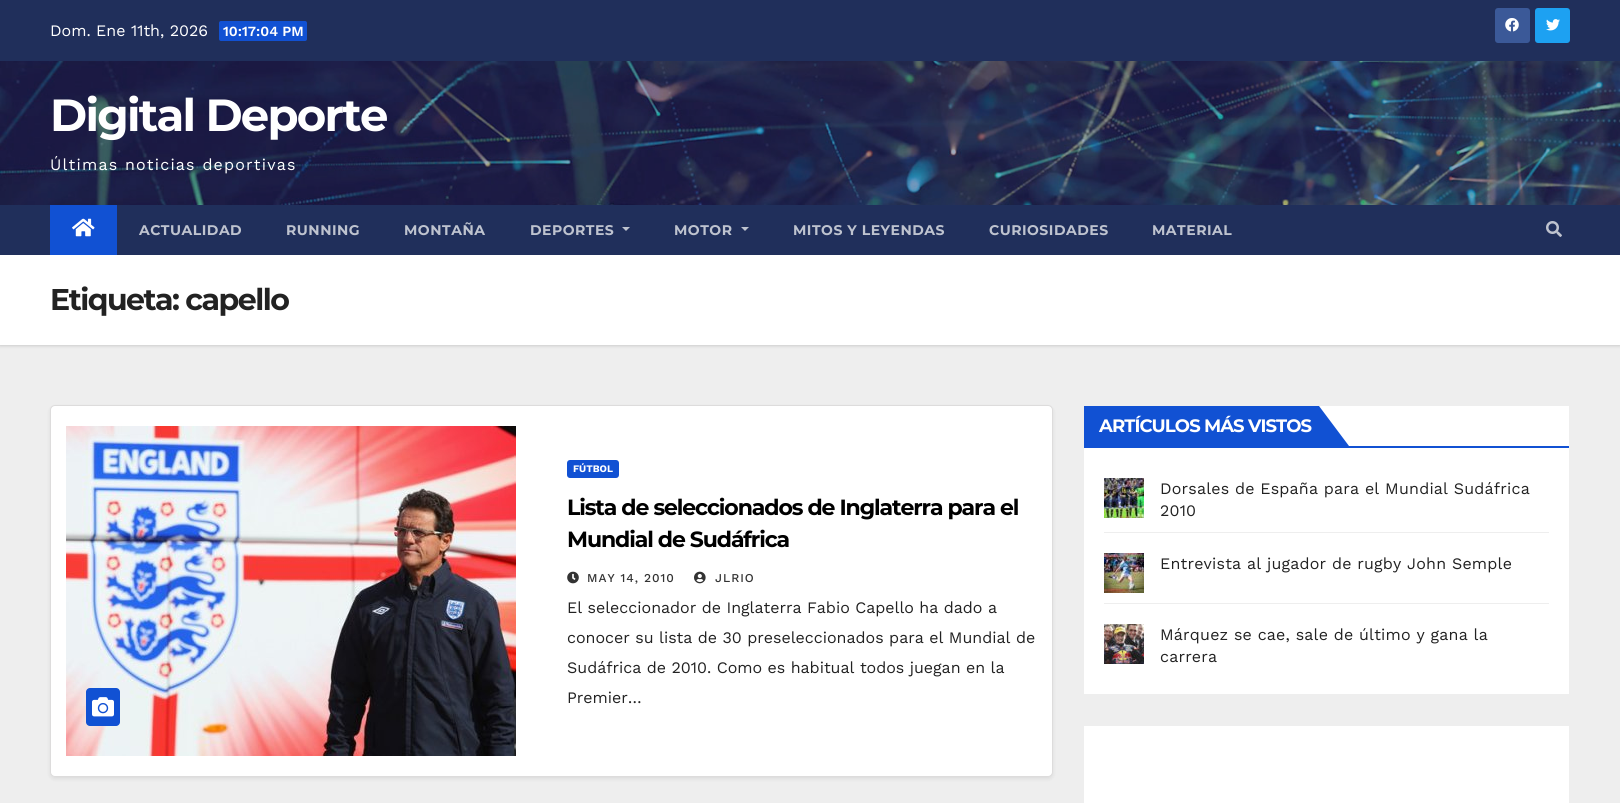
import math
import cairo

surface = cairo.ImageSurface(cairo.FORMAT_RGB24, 1620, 803)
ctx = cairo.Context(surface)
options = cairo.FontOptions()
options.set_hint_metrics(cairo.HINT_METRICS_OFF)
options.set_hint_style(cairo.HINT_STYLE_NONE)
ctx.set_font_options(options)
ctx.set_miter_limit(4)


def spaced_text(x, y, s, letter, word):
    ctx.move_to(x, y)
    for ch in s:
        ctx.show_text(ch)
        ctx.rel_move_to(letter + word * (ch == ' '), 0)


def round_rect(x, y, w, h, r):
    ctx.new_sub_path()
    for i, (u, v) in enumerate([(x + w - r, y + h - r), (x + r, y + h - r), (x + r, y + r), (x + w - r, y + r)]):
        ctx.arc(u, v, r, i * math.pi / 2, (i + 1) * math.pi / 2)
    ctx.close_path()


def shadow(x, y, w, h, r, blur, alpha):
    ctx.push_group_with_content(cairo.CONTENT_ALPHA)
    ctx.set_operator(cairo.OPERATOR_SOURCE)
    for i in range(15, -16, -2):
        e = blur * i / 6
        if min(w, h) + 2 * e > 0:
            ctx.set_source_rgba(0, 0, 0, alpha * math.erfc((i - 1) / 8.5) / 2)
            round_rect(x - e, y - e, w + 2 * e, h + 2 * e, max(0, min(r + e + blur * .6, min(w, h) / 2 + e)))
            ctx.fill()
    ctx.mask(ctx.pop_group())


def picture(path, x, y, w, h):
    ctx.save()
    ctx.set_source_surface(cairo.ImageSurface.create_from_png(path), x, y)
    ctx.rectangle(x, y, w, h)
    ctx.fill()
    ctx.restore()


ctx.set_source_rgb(0.933, 0.933, 0.933)
ctx.paint()
ctx.set_source_rgb(0.125, 0.184, 0.357)
ctx.rectangle(0, 0, 1620, 61)
ctx.fill()
ctx.select_font_face("Work Sans")
ctx.set_font_size(16)
ctx.set_source_rgb(1, 1, 1)
ctx.move_to(50, 36)
ctx.show_text("Dom. Ene 11th, 2026")
ctx.set_source_rgb(0.067, 0.318, 0.827)
round_rect(219, 21, 88, 20, 2)
ctx.fill()
ctx.select_font_face("Work Sans SemiBold")
ctx.set_font_size(14)
ctx.set_source_rgb(1, 1, 1)
ctx.move_to(223, 36)
ctx.show_text("10:17:04 PM")
ctx.set_source_rgb(0.231, 0.349, 0.596)
round_rect(1495, 8, 35, 35, 3)
ctx.fill()
picture("img1.png", 1505, 18, 14, 14)
ctx.set_source_rgb(0.114, 0.631, 0.949)
round_rect(1535, 8, 35, 35, 3)
ctx.fill()
picture("img2.png", 1546, 19, 14, 12)
picture("img3.png", 0, 61, 1620, 144)
ctx.select_font_face("Montserrat", cairo.FONT_SLANT_NORMAL, cairo.FONT_WEIGHT_BOLD)
ctx.set_font_size(45)
ctx.set_source_rgb(1, 1, 1)
spaced_text(50, 131, "Digital Deporte", -1.75, 0)
ctx.select_font_face("Work Sans")
ctx.set_font_size(16)
spaced_text(50, 170, "Últimas noticias deportivas", 1.2, 0)
ctx.set_source_rgb(0, 0, 0)
shadow(0, 256, 1620, 90, 0, 1.5, 0.15)
ctx.set_source_rgb(0.125, 0.184, 0.357)
ctx.rectangle(0, 205, 1620, 50)
ctx.fill()
ctx.set_source_rgb(0.067, 0.318, 0.827)
ctx.rectangle(50, 205, 67, 50)
ctx.fill()
picture("img4.png", 72, 218, 23, 19)
ctx.select_font_face("Montserrat", cairo.FONT_SLANT_NORMAL, cairo.FONT_WEIGHT_BOLD)
ctx.set_font_size(14)
ctx.set_source_rgb(0.745, 0.765, 0.812)
spaced_text(139, 235, "ACTUALIDAD", 0.5, 0)
spaced_text(286, 235, "RUNNING", 0.5, 0)
spaced_text(404, 235, "MONTAÑA", 0.5, 0)
spaced_text(530, 235, "DEPORTES", 0.5, 0)
ctx.new_path()
ctx.move_to(622, 227)
ctx.line_to(630, 227)
ctx.line_to(626, 231)
ctx.close_path()
ctx.fill()
spaced_text(674, 235, "MOTOR", 0.5, 0)
ctx.new_path()
ctx.move_to(741, 227)
ctx.line_to(749, 227)
ctx.line_to(745, 231)
ctx.close_path()
ctx.fill()
spaced_text(793, 235, "MITOS Y LEYENDAS", 0.5, 0)
spaced_text(989, 235, "CURIOSIDADES", 0.5, 0)
spaced_text(1152, 235, "MATERIAL", 0.5, 0)
picture("img5.png", 1546, 221, 16, 16)
ctx.set_source_rgb(1, 1, 1)
ctx.rectangle(0, 255, 1620, 90)
ctx.fill()
ctx.set_font_size(30)
ctx.set_source_rgb(0.133, 0.133, 0.133)
spaced_text(50, 310, "Etiqueta: capello", -1.5, 0)
ctx.set_source_rgb(0, 0, 0)
shadow(50, 407, 1003, 372, 5, 2, 0.08)
ctx.set_source_rgb(1, 1, 1)
round_rect(50.5, 405.5, 1002, 371, 4.5)
ctx.fill_preserve()
ctx.set_source_rgb(0.867, 0.863, 0.863)
ctx.set_line_width(1)
ctx.stroke()
picture("img6.png", 66, 426, 450, 330)
ctx.set_source_rgb(0.067, 0.318, 0.827)
round_rect(86, 688, 34, 38, 4)
ctx.fill()
picture("img7.png", 92, 697, 22, 20)
round_rect(567, 460, 52, 18, 3)
ctx.fill()
ctx.select_font_face("Work Sans", cairo.FONT_SLANT_NORMAL, cairo.FONT_WEIGHT_BOLD)
ctx.set_font_size(10)
ctx.set_source_rgb(1, 1, 1)
ctx.move_to(573, 472)
ctx.show_text("FÚTBOL")
ctx.select_font_face("Montserrat", cairo.FONT_SLANT_NORMAL, cairo.FONT_WEIGHT_BOLD)
ctx.set_font_size(22)
ctx.set_source_rgb(0, 0, 0)
spaced_text(567, 515, "Lista de seleccionados de Inglaterra para el", -1.1, 0)
spaced_text(567, 547, "Mundial de Sudáfrica", -1.1, 0)
picture("img8.png", 567, 571, 12, 13)
ctx.select_font_face("Work Sans Medium")
ctx.set_font_size(12)
ctx.set_source_rgb(0.2, 0.2, 0.2)
spaced_text(587, 582, "MAY 14, 2010", 1, 0)
picture("img9.png", 694, 571, 12, 13)
spaced_text(715, 582, "JLRIO", 1, 0)
ctx.select_font_face("Work Sans")
ctx.set_font_size(16)
ctx.set_source_rgb(0.133, 0.133, 0.133)
ctx.move_to(567, 613)
ctx.show_text("El seleccionador de Inglaterra Fabio Capello ha dado a")
ctx.move_to(567, 643)
ctx.show_text("conocer su lista de 30 preseleccionados para el Mundial de")
ctx.move_to(567, 673)
ctx.show_text("Sudáfrica de 2010. Como es habitual todos juegan en la")
ctx.move_to(567, 703)
ctx.show_text("Premier…")
ctx.set_source_rgb(1, 1, 1)
ctx.rectangle(1084, 406, 485, 288)
ctx.fill()
ctx.set_source_rgb(0.067, 0.318, 0.827)
ctx.rectangle(1084, 446, 485, 2)
ctx.fill()
ctx.rectangle(1084, 406, 235, 40)
ctx.fill()
ctx.select_font_face("Montserrat", cairo.FONT_SLANT_NORMAL, cairo.FONT_WEIGHT_BOLD)
ctx.set_font_size(18)
ctx.set_source_rgb(1, 1, 1)
spaced_text(1099, 432, "ARTÍCULOS MÁS VISTOS", -0.9, 0)
ctx.set_source_rgb(0.067, 0.318, 0.827)
ctx.new_path()
ctx.move_to(1319, 446)
ctx.line_to(1319, 406)
ctx.line_to(1349, 446)
ctx.close_path()
ctx.fill()
ctx.set_source_rgb(0.933, 0.933, 0.933)
ctx.rectangle(1104, 532, 445, 1)
ctx.fill()
picture("img10.png", 1104, 478, 40, 40)
ctx.select_font_face("Work Sans")
ctx.set_font_size(16)
ctx.set_source_rgb(0.133, 0.133, 0.133)
spaced_text(1160, 494, "Dorsales de España para el Mundial Sudáfrica", 0.2, 0)
spaced_text(1160, 516, "2010", 0.2, 0)
ctx.set_source_rgb(0.933, 0.933, 0.933)
ctx.rectangle(1104, 603, 445, 1)
ctx.fill()
picture("img11.png", 1104, 553, 40, 40)
ctx.set_source_rgb(0.133, 0.133, 0.133)
spaced_text(1160, 569, "Entrevista al jugador de rugby John Semple", 0.2, 0)
picture("img12.png", 1104, 624, 40, 40)
spaced_text(1160, 640, "Márquez se cae, sale de último y gana la", 0.2, 0)
spaced_text(1160, 662, "carrera", 0.2, 0)
ctx.set_source_rgb(1, 1, 1)
ctx.rectangle(1084, 726, 485, 77)
ctx.fill()
surface.write_to_png("page.png")
